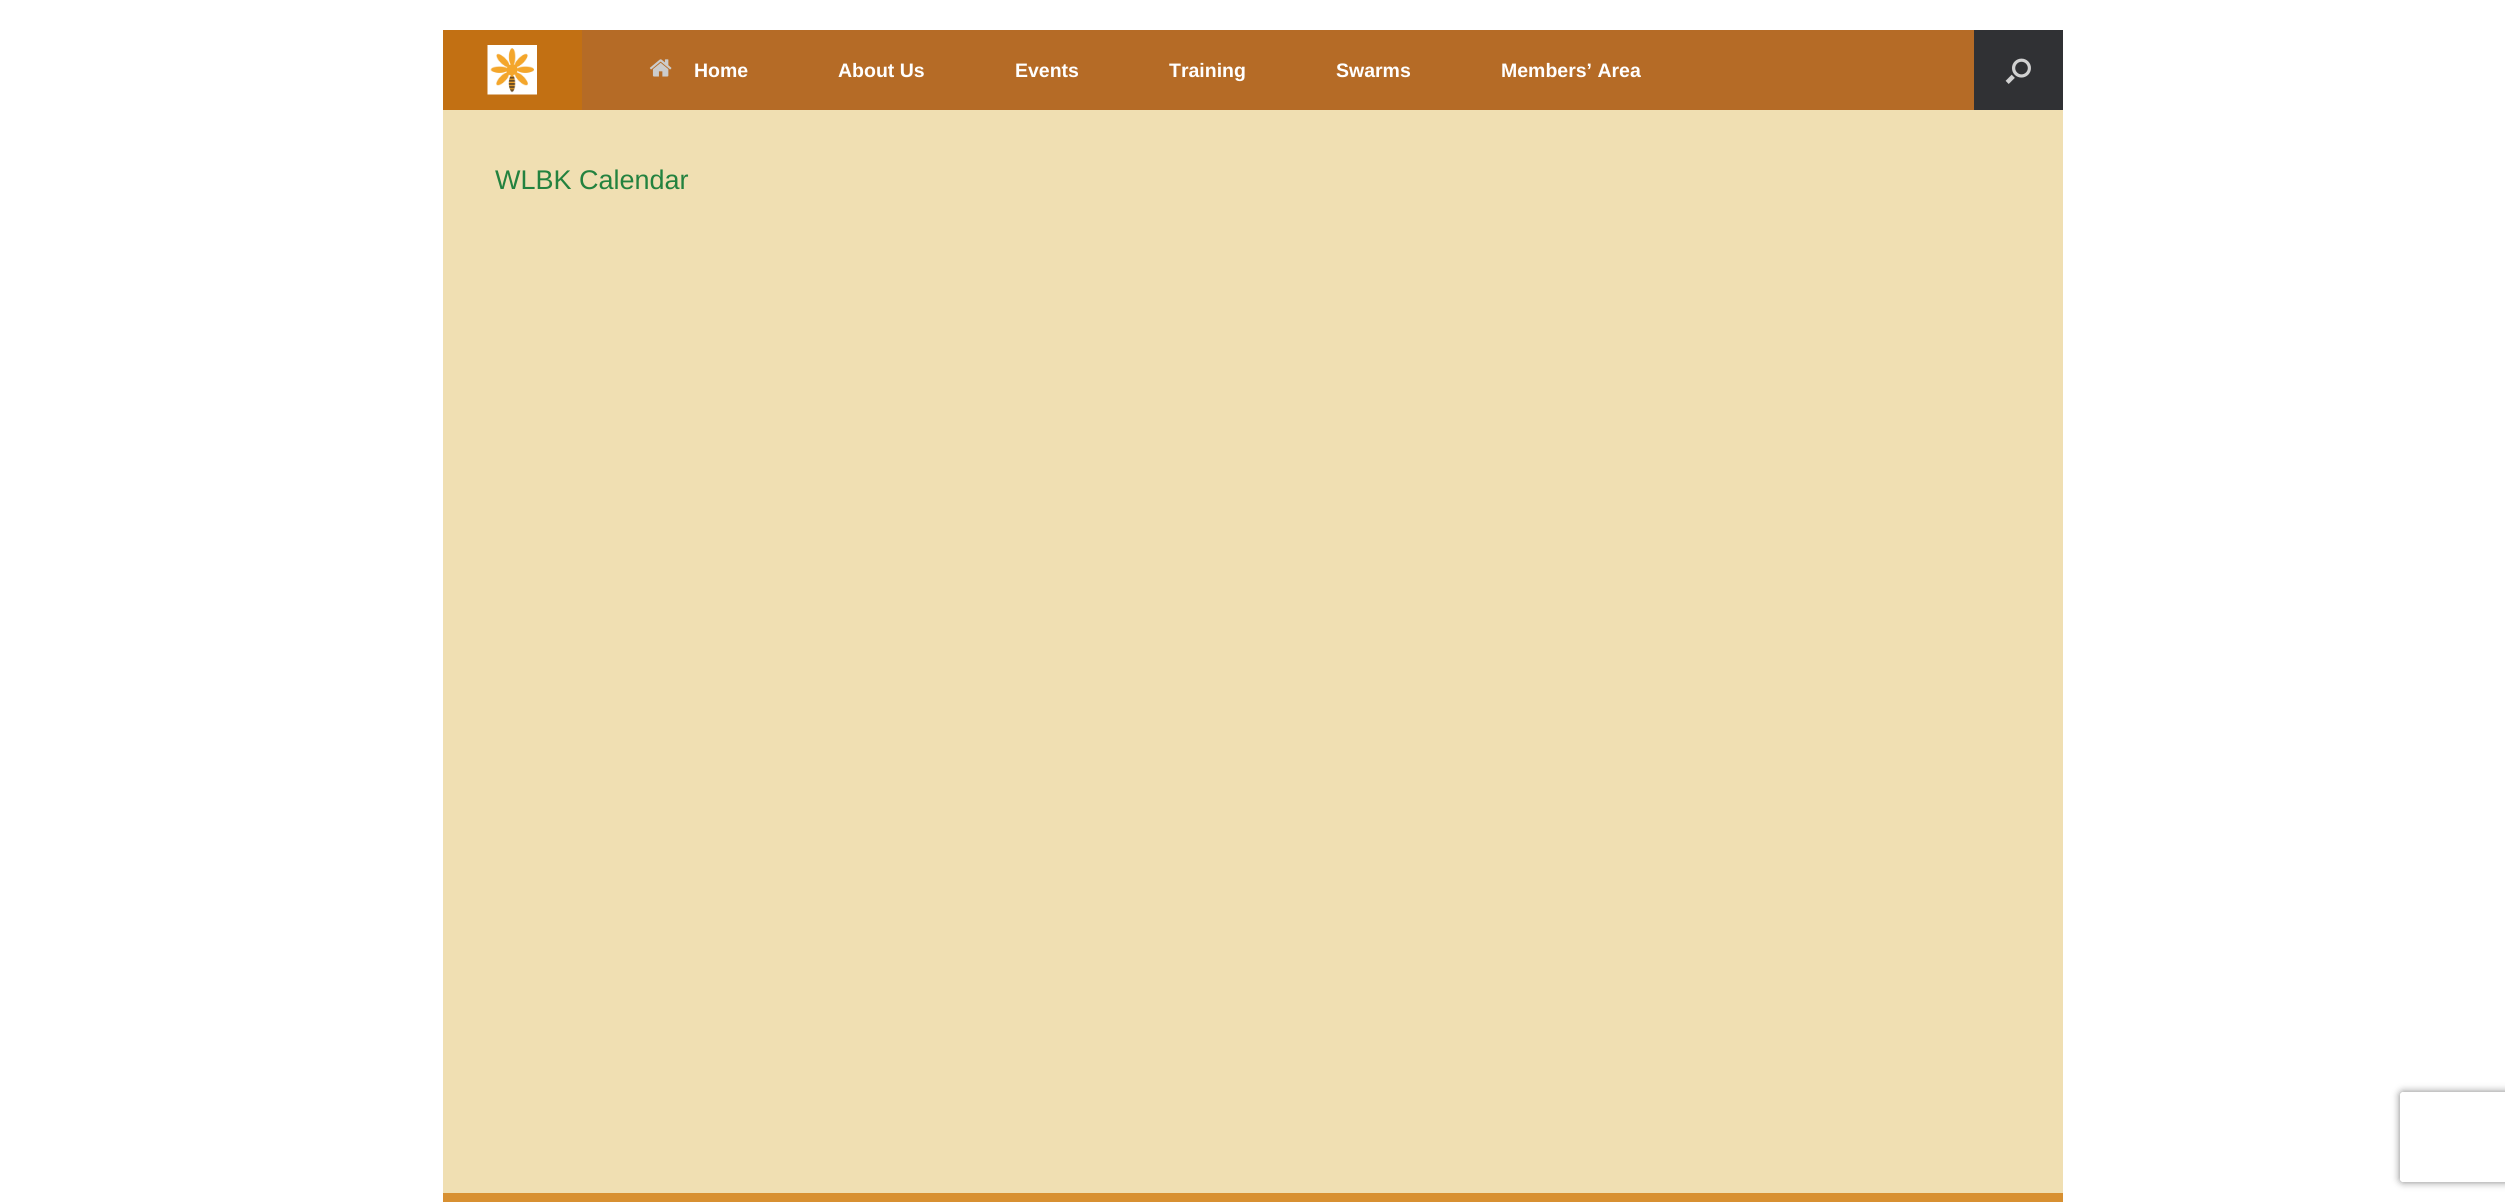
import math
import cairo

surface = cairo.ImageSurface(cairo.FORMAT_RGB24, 2505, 1202)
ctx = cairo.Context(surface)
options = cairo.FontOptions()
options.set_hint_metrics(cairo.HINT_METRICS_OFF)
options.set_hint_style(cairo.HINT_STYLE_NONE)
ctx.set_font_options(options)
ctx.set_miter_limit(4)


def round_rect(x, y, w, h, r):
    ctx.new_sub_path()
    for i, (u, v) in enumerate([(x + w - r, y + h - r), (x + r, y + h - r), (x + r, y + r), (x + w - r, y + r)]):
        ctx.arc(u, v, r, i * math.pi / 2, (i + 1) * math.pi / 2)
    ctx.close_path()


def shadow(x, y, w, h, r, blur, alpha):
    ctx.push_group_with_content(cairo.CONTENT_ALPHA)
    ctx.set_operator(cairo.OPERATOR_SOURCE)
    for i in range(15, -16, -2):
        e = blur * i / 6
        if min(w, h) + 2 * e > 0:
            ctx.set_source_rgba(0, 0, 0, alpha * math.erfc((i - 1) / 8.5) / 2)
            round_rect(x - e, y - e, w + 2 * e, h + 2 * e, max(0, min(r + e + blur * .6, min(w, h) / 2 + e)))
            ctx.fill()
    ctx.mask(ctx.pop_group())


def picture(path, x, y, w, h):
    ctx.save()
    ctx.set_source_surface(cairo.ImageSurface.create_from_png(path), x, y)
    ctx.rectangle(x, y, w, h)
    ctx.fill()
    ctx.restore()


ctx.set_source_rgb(1, 1, 1)
ctx.paint()
ctx.set_source_rgb(0.71, 0.42, 0.149)
ctx.rectangle(582, 30, 1392, 80)
ctx.fill()
ctx.set_source_rgb(0.761, 0.439, 0.075)
ctx.rectangle(443, 30, 139, 80)
ctx.fill()
picture("img1.png", 487, 45, 50, 50)
picture("img2.png", 649, 59, 23, 18)
ctx.select_font_face("Liberation Sans", cairo.FONT_SLANT_NORMAL, cairo.FONT_WEIGHT_BOLD)
ctx.set_font_size(19.5)
ctx.set_source_rgb(1, 1, 1)
ctx.move_to(694, 77)
ctx.show_text("Home")
ctx.move_to(838, 77)
ctx.show_text("About Us")
ctx.move_to(1015, 77)
ctx.show_text("Events")
ctx.move_to(1169, 77)
ctx.show_text("Training")
ctx.move_to(1336, 77)
ctx.show_text("Swarms")
ctx.move_to(1501, 77)
ctx.show_text("Members’ Area")
ctx.set_source_rgb(0.188, 0.192, 0.204)
ctx.rectangle(1974, 30, 89, 80)
ctx.fill()
picture("img3.png", 2005, 58, 26, 26)
ctx.set_source_rgb(0.941, 0.875, 0.698)
ctx.rectangle(443, 110, 1620, 1083)
ctx.fill()
ctx.select_font_face("Liberation Sans")
ctx.set_font_size(27)
ctx.set_source_rgb(0.137, 0.51, 0.247)
ctx.move_to(495, 189)
ctx.show_text("WLBK Calendar")
ctx.set_source_rgb(0.847, 0.565, 0.192)
ctx.rectangle(443, 1193, 1620, 9)
ctx.fill()
ctx.save()
ctx.set_fill_rule(cairo.FILL_RULE_EVEN_ODD)
ctx.new_path()
ctx.move_to(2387, 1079)
ctx.line_to(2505, 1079)
ctx.line_to(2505, 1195)
ctx.line_to(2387, 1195)
ctx.close_path()
ctx.move_to(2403, 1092)
ctx.line_to(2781, 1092)
ctx.curve_to(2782.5, 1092, 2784, 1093.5, 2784, 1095)
ctx.line_to(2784, 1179)
ctx.curve_to(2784, 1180.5, 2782.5, 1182, 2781, 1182)
ctx.line_to(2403, 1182)
ctx.curve_to(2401.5, 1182, 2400, 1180.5, 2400, 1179)
ctx.line_to(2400, 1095)
ctx.curve_to(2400, 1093.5, 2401.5, 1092, 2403, 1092)
ctx.close_path()
ctx.clip()
ctx.set_source_rgb(0.502, 0.502, 0.502)
shadow(2400, 1092, 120, 90, 3, 4, 1)
ctx.restore()
surface.write_to_png("page.png")
